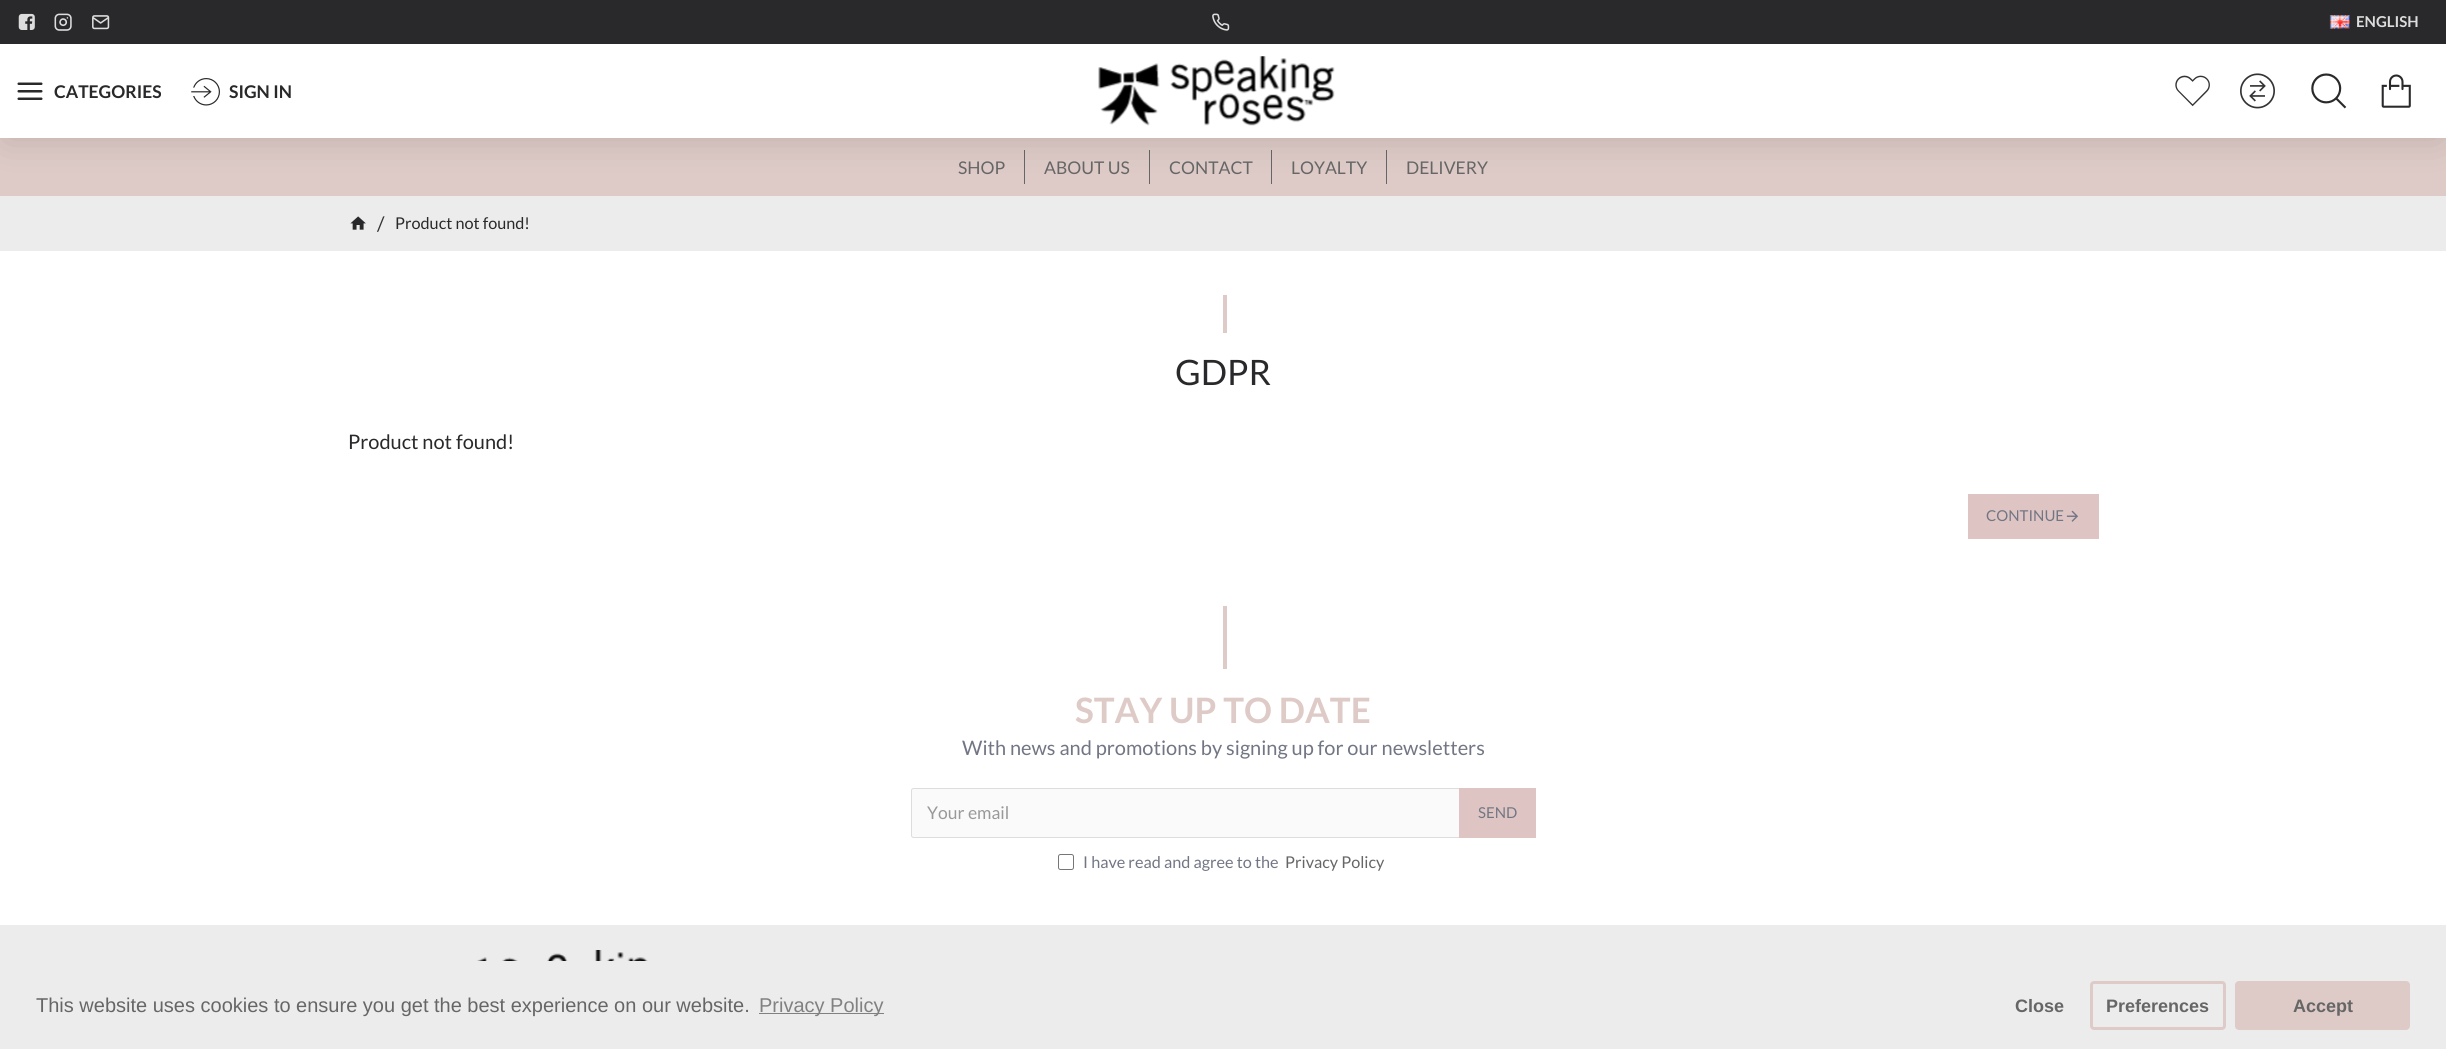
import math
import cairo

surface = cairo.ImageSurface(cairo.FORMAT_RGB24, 2446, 1049)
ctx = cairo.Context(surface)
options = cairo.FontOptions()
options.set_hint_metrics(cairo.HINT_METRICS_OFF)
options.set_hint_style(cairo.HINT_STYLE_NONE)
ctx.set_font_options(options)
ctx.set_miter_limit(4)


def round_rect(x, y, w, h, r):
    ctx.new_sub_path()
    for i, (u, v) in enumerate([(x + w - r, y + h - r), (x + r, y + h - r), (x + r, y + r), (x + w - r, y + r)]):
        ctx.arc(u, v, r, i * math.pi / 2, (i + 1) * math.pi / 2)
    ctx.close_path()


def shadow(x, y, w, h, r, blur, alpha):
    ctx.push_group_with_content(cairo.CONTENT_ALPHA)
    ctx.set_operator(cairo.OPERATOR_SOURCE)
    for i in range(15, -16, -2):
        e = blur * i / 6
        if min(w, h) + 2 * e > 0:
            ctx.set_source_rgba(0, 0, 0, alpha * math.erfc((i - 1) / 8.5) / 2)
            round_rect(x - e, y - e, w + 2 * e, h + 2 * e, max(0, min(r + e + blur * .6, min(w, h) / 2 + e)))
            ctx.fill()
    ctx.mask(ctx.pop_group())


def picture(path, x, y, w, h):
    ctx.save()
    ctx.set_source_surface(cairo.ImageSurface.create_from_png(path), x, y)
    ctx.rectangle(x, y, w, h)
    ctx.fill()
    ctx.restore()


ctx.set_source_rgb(1, 1, 1)
ctx.paint()
ctx.set_source_rgb(0.871, 0.796, 0.78)
ctx.rectangle(0, 138, 2446, 58)
ctx.fill()
ctx.set_source_rgb(0.4, 0.4, 0.4)
ctx.rectangle(1024, 150, 1, 34)
ctx.fill()
ctx.rectangle(1149, 150, 1, 34)
ctx.fill()
ctx.rectangle(1271, 150, 1, 34)
ctx.fill()
ctx.rectangle(1386, 150, 1, 34)
ctx.fill()
ctx.set_source_rgb(0, 0, 0)
shadow(6, 13, 2434, 125, 0, 19, 0.15)
ctx.set_source_rgb(1, 1, 1)
ctx.rectangle(0, 44, 2446, 94)
ctx.fill()
ctx.set_source_rgb(0.161, 0.161, 0.169)
ctx.rectangle(0, 0, 2446, 44)
ctx.fill()
picture("img1.png", 18, 13, 17, 17)
picture("img2.png", 54, 13, 18, 18)
picture("img3.png", 92, 15, 18, 15)
picture("img4.png", 1212, 13, 18, 18)
picture("img5.png", 2329, 15, 21, 14)
ctx.select_font_face("Lato", cairo.FONT_SLANT_NORMAL, cairo.FONT_WEIGHT_BOLD)
ctx.set_font_size(15)
ctx.set_source_rgb(0.867, 0.867, 0.867)
ctx.move_to(2356, 27)
ctx.show_text("ENGLISH")
picture("img6.png", 17, 82, 26, 18)
ctx.set_font_size(17.5)
ctx.set_source_rgb(0.161, 0.161, 0.169)
ctx.move_to(54, 98)
ctx.show_text("CATEGORIES")
picture("img7.png", 191, 78, 29, 28)
ctx.move_to(229, 98)
ctx.show_text("SIGN IN")
picture("img8.png", 1098, 56, 237, 70)
picture("img9.png", 2175, 75, 35, 32)
picture("img10.png", 2240, 73, 35, 36)
picture("img11.png", 2311, 73, 36, 36)
picture("img12.png", 2381, 74, 30, 34)
ctx.select_font_face("Lato")
ctx.set_source_rgb(0.4, 0.4, 0.4)
ctx.move_to(958, 174)
ctx.show_text("SHOP")
ctx.move_to(1044, 174)
ctx.show_text("ABOUT US")
ctx.move_to(1169, 174)
ctx.show_text("CONTACT")
ctx.move_to(1291, 174)
ctx.show_text("LOYALTY")
ctx.move_to(1406, 174)
ctx.show_text("DELIVERY")
ctx.set_source_rgb(0.922, 0.922, 0.922)
ctx.rectangle(0, 196, 2446, 55)
ctx.fill()
picture("img13.png", 350, 216, 16, 14)
ctx.set_font_size(20)
ctx.set_source_rgb(0.204, 0.204, 0.22)
ctx.move_to(377, 231)
ctx.show_text("/")
ctx.set_font_size(16.25)
ctx.set_source_rgb(0.161, 0.161, 0.169)
ctx.move_to(395, 229)
ctx.show_text("Product not found!")
ctx.set_source_rgb(0.871, 0.796, 0.78)
ctx.rectangle(1223, 295, 4, 38)
ctx.fill()
ctx.set_font_size(35)
ctx.set_source_rgb(0.161, 0.161, 0.169)
ctx.move_to(1175, 385)
ctx.show_text("GDPR")
ctx.set_font_size(20)
ctx.move_to(348, 449)
ctx.show_text("Product not found!")
ctx.set_source_rgb(0.871, 0.773, 0.765)
ctx.rectangle(1968, 494, 131, 45)
ctx.fill()
ctx.set_font_size(15)
ctx.set_source_rgb(0.447, 0.463, 0.518)
ctx.move_to(1986, 521)
ctx.show_text("CONTINUE")
picture("img14.png", 2066, 510, 12, 12)
ctx.set_source_rgb(0.922, 0.922, 0.922)
ctx.rectangle(0, 925, 2446, 124)
ctx.fill()
ctx.set_source_rgb(0.871, 0.796, 0.78)
ctx.rectangle(1223, 606, 4, 63)
ctx.fill()
ctx.select_font_face("Lato", cairo.FONT_SLANT_NORMAL, cairo.FONT_WEIGHT_BOLD)
ctx.set_font_size(35)
ctx.move_to(1075, 723)
ctx.show_text("STAY UP TO DATE")
ctx.select_font_face("Lato")
ctx.set_font_size(20)
ctx.set_source_rgb(0.447, 0.463, 0.518)
ctx.move_to(962, 755)
ctx.show_text("With news and promotions by signing up for our newsletters")
ctx.set_source_rgb(0.98, 0.98, 0.98)
round_rect(911.5, 788.5, 624, 49, 2)
ctx.fill_preserve()
ctx.set_source_rgb(0.867, 0.867, 0.867)
ctx.set_line_width(1)
ctx.stroke()
ctx.set_font_size(17.5)
ctx.set_source_rgb(0.6, 0.6, 0.6)
ctx.move_to(927, 819)
ctx.show_text("Your email")
ctx.set_source_rgb(0.871, 0.773, 0.765)
ctx.rectangle(1459, 788, 77, 50)
ctx.fill()
ctx.set_font_size(15)
ctx.set_source_rgb(0.447, 0.463, 0.518)
ctx.move_to(1478, 818)
ctx.show_text("SEND")
round_rect(1058.5, 854.5, 15, 15, 2)
ctx.set_source_rgb(0.463, 0.463, 0.463)
ctx.stroke()
ctx.set_font_size(16.25)
ctx.set_source_rgb(0.447, 0.463, 0.518)
ctx.move_to(1083, 868)
ctx.show_text("I have read and agree to the")
ctx.set_source_rgb(0.4, 0.4, 0.4)
ctx.move_to(1285, 868)
ctx.show_text("Privacy Policy")
picture("img15.png", 477, 950, 171, 11)
ctx.select_font_face("Liberation Sans")
ctx.set_font_size(20)
ctx.move_to(36, 1012)
ctx.show_text("This website uses cookies to ensure you get the best experience on our website.")
ctx.set_source_rgb(0.506, 0.506, 0.506)
ctx.rectangle(759, 1013, 125, 1)
ctx.fill()
ctx.move_to(759, 1012)
ctx.show_text("Privacy Policy")
ctx.select_font_face("Liberation Sans", cairo.FONT_SLANT_NORMAL, cairo.FONT_WEIGHT_BOLD)
ctx.set_font_size(18)
ctx.set_source_rgb(0.4, 0.4, 0.4)
ctx.move_to(2015, 1012)
ctx.show_text("Close")
round_rect(2091.5, 982.5, 133, 46, 2.5)
ctx.set_source_rgb(0.871, 0.796, 0.78)
ctx.set_line_width(3)
ctx.stroke()
ctx.set_source_rgb(0.4, 0.4, 0.4)
ctx.move_to(2106, 1012)
ctx.show_text("Preferences")
ctx.set_source_rgb(0.871, 0.796, 0.78)
round_rect(2235, 981, 175, 49, 4)
ctx.fill()
ctx.set_source_rgb(0.4, 0.4, 0.4)
ctx.move_to(2293, 1012)
ctx.show_text("Accept")
surface.write_to_png("page.png")
